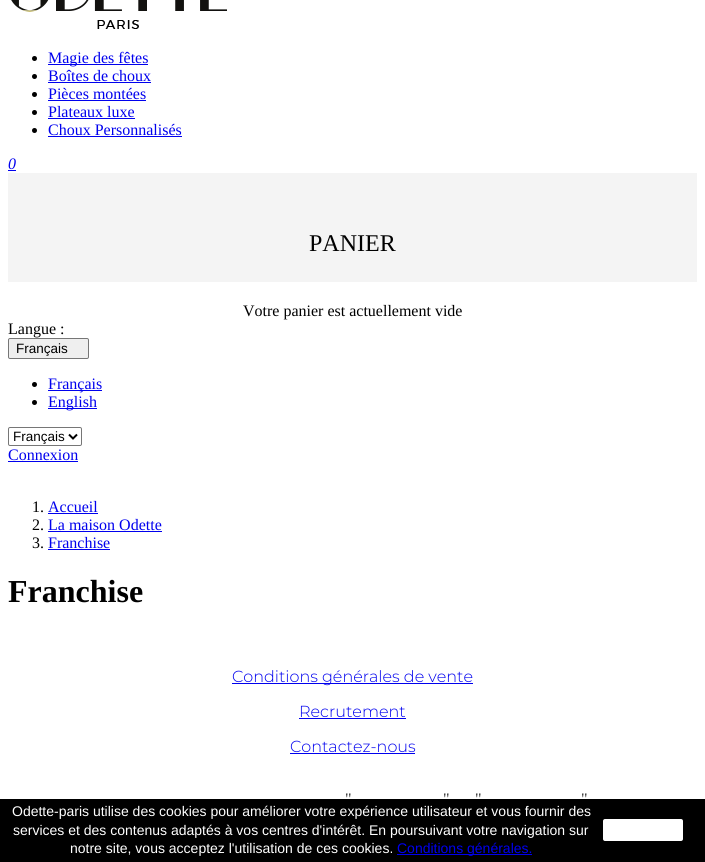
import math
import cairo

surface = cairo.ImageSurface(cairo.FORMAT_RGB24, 705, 862)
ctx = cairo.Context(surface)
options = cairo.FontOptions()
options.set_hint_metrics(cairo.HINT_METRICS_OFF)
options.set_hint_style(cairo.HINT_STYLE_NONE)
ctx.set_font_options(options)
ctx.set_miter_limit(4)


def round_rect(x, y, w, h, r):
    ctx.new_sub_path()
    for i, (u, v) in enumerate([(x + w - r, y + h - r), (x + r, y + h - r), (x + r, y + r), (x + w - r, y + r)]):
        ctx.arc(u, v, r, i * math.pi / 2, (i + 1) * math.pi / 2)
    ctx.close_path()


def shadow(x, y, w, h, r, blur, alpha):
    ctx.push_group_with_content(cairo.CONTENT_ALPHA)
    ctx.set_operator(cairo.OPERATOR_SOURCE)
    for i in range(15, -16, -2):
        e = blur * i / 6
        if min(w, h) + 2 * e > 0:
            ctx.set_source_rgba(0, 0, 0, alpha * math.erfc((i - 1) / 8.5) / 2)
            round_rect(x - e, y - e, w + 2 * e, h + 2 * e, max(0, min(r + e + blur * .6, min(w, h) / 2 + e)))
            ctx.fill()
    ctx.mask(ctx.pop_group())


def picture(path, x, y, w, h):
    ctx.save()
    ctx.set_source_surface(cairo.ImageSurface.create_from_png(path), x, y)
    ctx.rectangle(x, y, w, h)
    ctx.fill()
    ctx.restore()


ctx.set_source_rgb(1, 1, 1)
ctx.paint()
picture("img1.png", 11, 0, 216, 29)
ctx.set_source_rgb(0, 0, 0)
ctx.arc(34.5, 58.5, 2.5, 0, 2 * math.pi)
ctx.fill()
ctx.set_source_rgb(0, 0, 0.933)
ctx.rectangle(48, 64, 100, 1)
ctx.fill()
ctx.select_font_face("Liberation Serif")
ctx.set_font_size(16)
ctx.move_to(48, 63)
ctx.show_text("Magie des fêtes")
ctx.set_source_rgb(0, 0, 0)
ctx.new_path()
ctx.arc(34.5, 76.5, 2.5, 0, 2 * math.pi)
ctx.fill()
ctx.set_source_rgb(0, 0, 0.933)
ctx.move_to(48, 81)
ctx.show_text("Boîtes de choux")
ctx.rectangle(48, 82, 103, 1)
ctx.fill()
ctx.set_source_rgb(0, 0, 0)
ctx.arc(34.5, 94.5, 2.5, 0, 2 * math.pi)
ctx.fill()
ctx.set_source_rgb(0, 0, 0.933)
ctx.move_to(48, 99)
ctx.show_text("Pièces montées")
ctx.rectangle(48, 100, 98, 1)
ctx.fill()
ctx.set_source_rgb(0, 0, 0)
ctx.arc(34.5, 112.5, 2.5, 0, 2 * math.pi)
ctx.fill()
ctx.set_source_rgb(0, 0, 0.933)
ctx.move_to(48, 117)
ctx.show_text("Plateaux luxe")
ctx.rectangle(48, 118, 87, 1)
ctx.fill()
ctx.set_source_rgb(0, 0, 0)
ctx.arc(34.5, 130.5, 2.5, 0, 2 * math.pi)
ctx.fill()
ctx.set_source_rgb(0, 0, 0.933)
ctx.move_to(48, 135)
ctx.show_text("Choux Personnalisés")
ctx.rectangle(48, 136, 134, 1)
ctx.fill()
ctx.select_font_face("Liberation Serif", cairo.FONT_SLANT_ITALIC)
ctx.move_to(8, 169)
ctx.show_text("0")
ctx.rectangle(8, 170, 8, 1)
ctx.fill()
ctx.set_source_rgb(0.957, 0.957, 0.957)
ctx.rectangle(8, 173, 689, 109)
ctx.fill()
ctx.select_font_face("Liberation Serif")
ctx.set_font_size(24)
ctx.set_source_rgb(0, 0, 0)
ctx.move_to(309, 251)
ctx.show_text("PANIER")
ctx.set_font_size(16)
ctx.move_to(243, 316)
ctx.show_text("Votre panier est actuellement vide")
ctx.move_to(8, 334)
ctx.show_text("Langue :")
ctx.set_source_rgb(0.937, 0.937, 0.937)
round_rect(8.5, 338.5, 80, 20, 1.5)
ctx.fill_preserve()
ctx.set_source_rgb(0.463, 0.463, 0.463)
ctx.set_line_width(1)
ctx.stroke()
ctx.select_font_face("Liberation Sans")
ctx.set_font_size(13.5)
ctx.set_source_rgb(0, 0, 0)
ctx.move_to(16, 353)
ctx.show_text("Français")
ctx.new_path()
ctx.arc(34.5, 384.5, 2.5, 0, 2 * math.pi)
ctx.fill()
ctx.set_source_rgb(0, 0, 0.933)
ctx.rectangle(48, 390, 54, 1)
ctx.fill()
ctx.select_font_face("Liberation Serif")
ctx.set_font_size(16)
ctx.move_to(48, 389)
ctx.show_text("Français")
ctx.set_source_rgb(0, 0, 0)
ctx.new_path()
ctx.arc(34.5, 402.5, 2.5, 0, 2 * math.pi)
ctx.fill()
ctx.set_source_rgb(0, 0, 0.933)
ctx.rectangle(48, 408, 49, 1)
ctx.fill()
ctx.move_to(48, 407)
ctx.show_text("English")
round_rect(8.5, 427.5, 73, 18, 1.5)
ctx.set_source_rgb(0.463, 0.463, 0.463)
ctx.stroke()
ctx.new_path()
ctx.move_to(69, 434.5)
ctx.line_to(73, 438.5)
ctx.line_to(77, 434.5)
ctx.set_source_rgb(0, 0, 0)
ctx.set_line_width(2)
ctx.stroke()
ctx.select_font_face("Liberation Sans")
ctx.set_font_size(13.5)
ctx.move_to(13, 441)
ctx.show_text("Français")
ctx.select_font_face("Liberation Serif")
ctx.set_font_size(16)
ctx.set_source_rgb(0, 0, 0.933)
ctx.move_to(8, 460)
ctx.show_text("Connexion")
ctx.rectangle(8, 461, 70, 1)
ctx.fill()
ctx.set_source_rgb(0, 0, 0)
ctx.move_to(32, 512)
ctx.show_text("1.")
ctx.set_source_rgb(0, 0, 0.933)
ctx.move_to(48, 512)
ctx.show_text("Accueil")
ctx.rectangle(48, 513, 50, 1)
ctx.fill()
ctx.set_source_rgb(0, 0, 0)
ctx.move_to(32, 530)
ctx.show_text("2.")
ctx.set_source_rgb(0, 0, 0.933)
ctx.move_to(48, 530)
ctx.show_text("La maison Odette")
ctx.rectangle(48, 531, 114, 1)
ctx.fill()
ctx.set_source_rgb(0, 0, 0)
ctx.move_to(32, 548)
ctx.show_text("3.")
ctx.set_source_rgb(0, 0, 0.933)
ctx.move_to(48, 548)
ctx.show_text("Franchise")
ctx.rectangle(48, 549, 62, 1)
ctx.fill()
ctx.select_font_face("Liberation Serif", cairo.FONT_SLANT_NORMAL, cairo.FONT_WEIGHT_BOLD)
ctx.set_font_size(32)
ctx.set_source_rgb(0, 0, 0)
ctx.move_to(8, 602)
ctx.show_text("Franchise")
ctx.set_source_rgb(0, 0, 0.933)
ctx.rectangle(232, 683, 241, 1)
ctx.fill()
ctx.select_font_face("Montserrat Light")
ctx.set_font_size(16)
ctx.move_to(232, 682)
ctx.show_text("Conditions générales de vente")
ctx.move_to(299, 717)
ctx.show_text("Recrutement")
ctx.rectangle(299, 718, 107, 1)
ctx.fill()
ctx.move_to(290, 752)
ctx.show_text("Contactez-nous")
ctx.rectangle(290, 753, 125, 1)
ctx.fill()
ctx.select_font_face("Liberation Serif")
ctx.set_source_rgb(0, 0, 0)
ctx.move_to(345, 804)
ctx.show_text("\"")
ctx.move_to(443, 804)
ctx.show_text("\"")
ctx.move_to(475, 804)
ctx.show_text("\"")
ctx.move_to(581, 804)
ctx.show_text("\"")
ctx.set_source_rgb(1, 1, 1)
shadow(0, 799, 705, 63, 0, 5, 1)
ctx.set_source_rgb(0, 0, 0)
ctx.rectangle(0, 799, 705, 63)
ctx.fill()
ctx.select_font_face("Liberation Sans")
ctx.set_font_size(14)
ctx.set_source_rgb(1, 1, 1)
ctx.move_to(12, 816)
ctx.show_text("Odette-paris utilise des cookies pour améliorer votre expérience utilisateur et vous fournir des")
ctx.move_to(13, 835)
ctx.show_text("services et des contenus adaptés à vos centres d'intérêt. En poursuivant votre navigation sur")
ctx.move_to(70, 853)
ctx.show_text("notre site, vous acceptez l'utilisation de ces cookies.")
ctx.set_source_rgb(0, 0, 0.933)
ctx.rectangle(397, 854, 135, 1)
ctx.fill()
ctx.move_to(397, 853)
ctx.show_text("Conditions générales.")
ctx.set_source_rgb(1, 1, 1)
round_rect(603, 819, 80, 22, 2)
ctx.fill()
surface.write_to_png("page.png")
